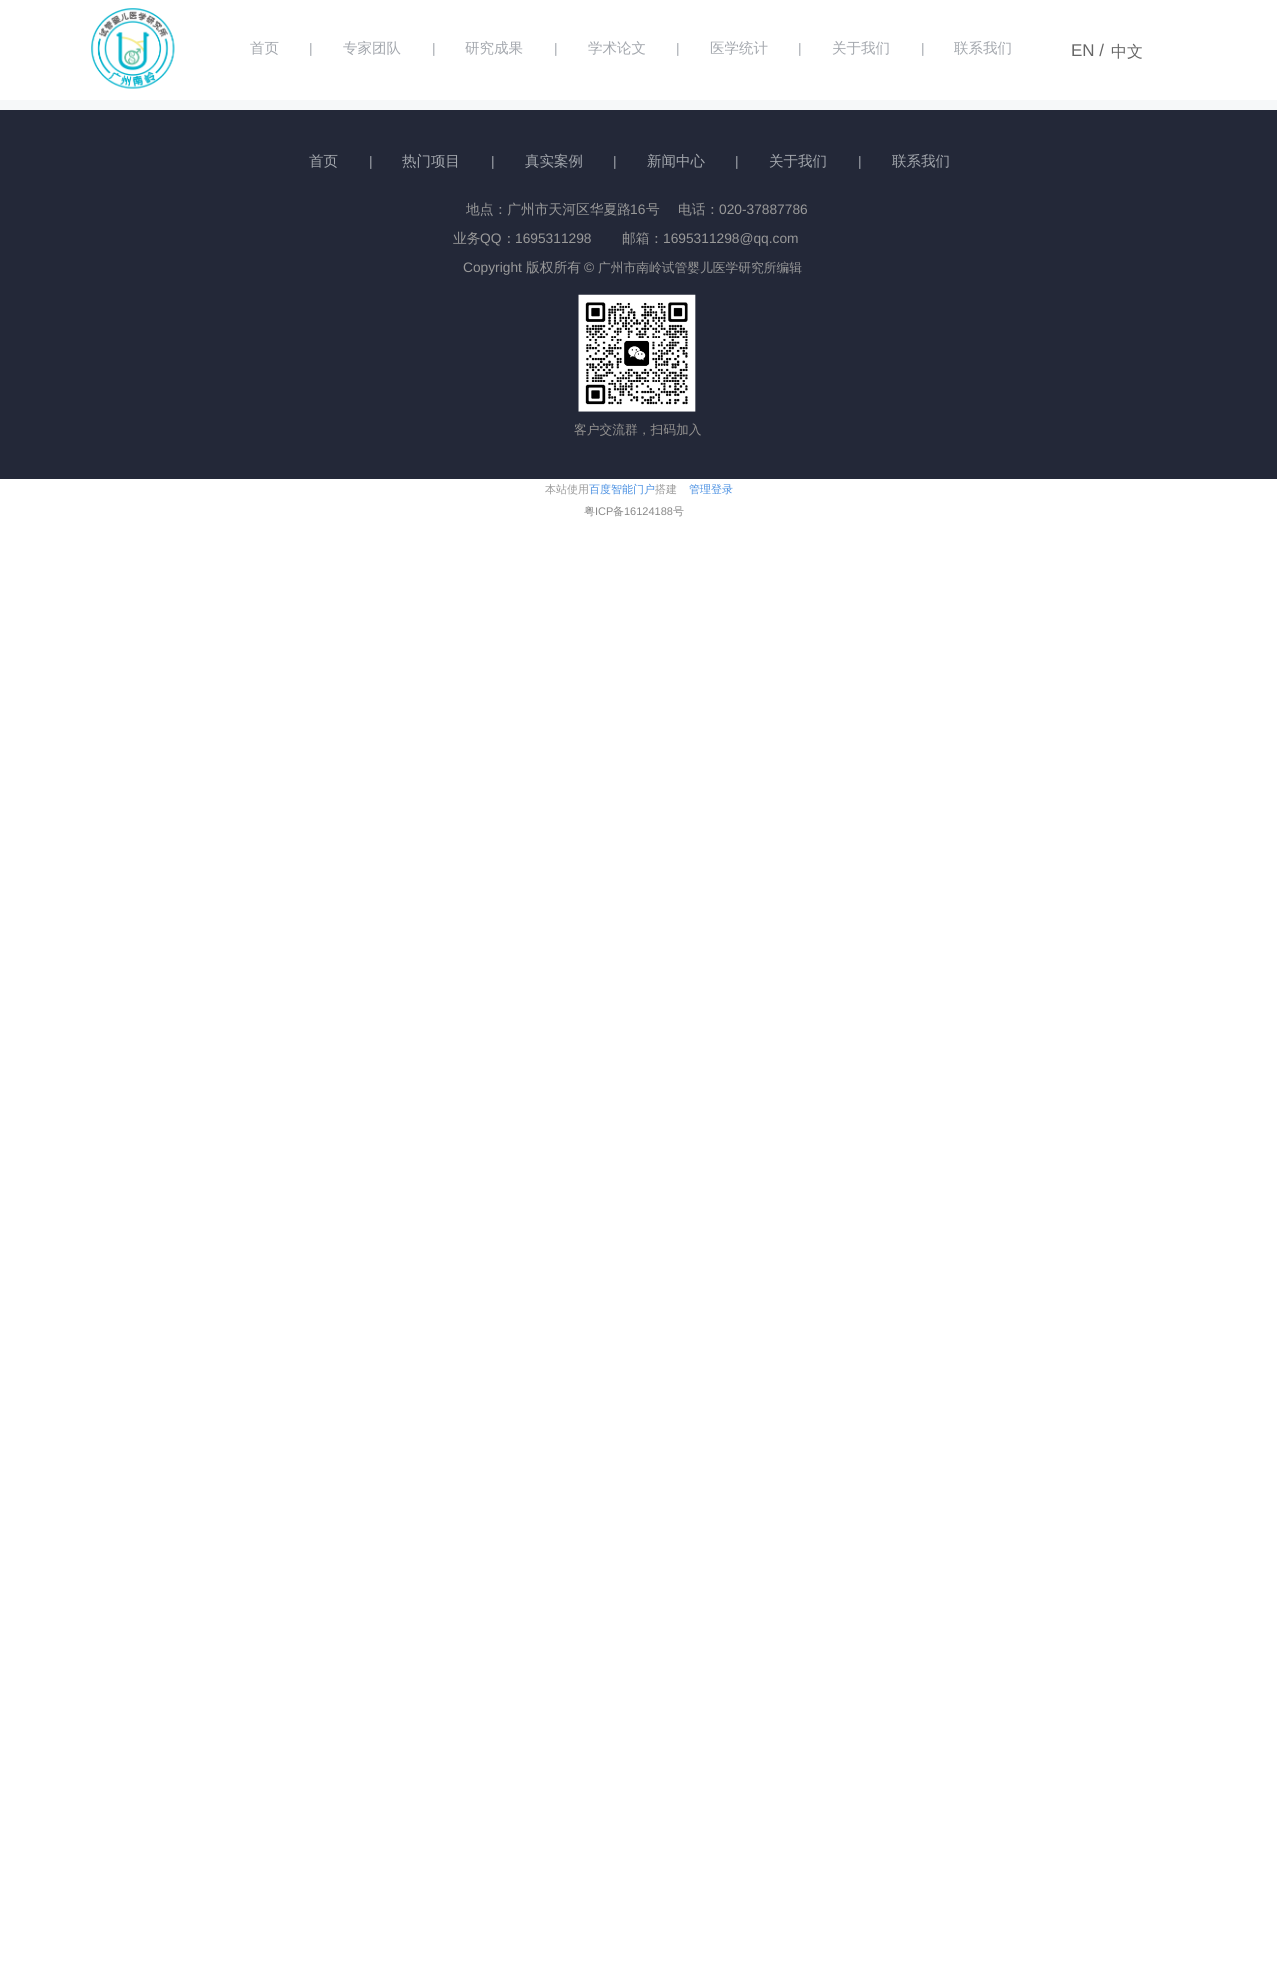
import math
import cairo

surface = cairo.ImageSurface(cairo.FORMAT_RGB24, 1277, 1987)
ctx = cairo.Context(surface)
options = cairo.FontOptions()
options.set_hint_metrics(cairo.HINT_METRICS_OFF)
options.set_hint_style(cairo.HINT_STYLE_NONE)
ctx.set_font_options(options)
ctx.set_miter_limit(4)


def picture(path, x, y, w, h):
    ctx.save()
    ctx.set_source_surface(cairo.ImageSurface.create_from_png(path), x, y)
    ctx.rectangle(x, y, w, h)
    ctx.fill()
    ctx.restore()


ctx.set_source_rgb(1, 1, 1)
ctx.paint()
ctx.set_source_rgb(0.961, 0.969, 0.976)
ctx.rectangle(0, 100, 1277, 10)
ctx.fill()
picture("img1.png", 91, 8, 84, 81)
ctx.select_font_face("WenQuanYi Zen Hei Medium")
ctx.set_font_size(14.5)
ctx.set_source_rgb(0.639, 0.655, 0.678)
ctx.move_to(250, 53)
ctx.show_text("首页")
ctx.select_font_face("Liberation Sans")
ctx.set_font_size(13.75)
ctx.move_to(309, 53)
ctx.show_text("|")
ctx.select_font_face("WenQuanYi Zen Hei Medium")
ctx.set_font_size(14.5)
ctx.move_to(343, 53)
ctx.show_text("专家团队")
ctx.select_font_face("Liberation Sans")
ctx.set_font_size(13.75)
ctx.move_to(432, 53)
ctx.show_text("|")
ctx.select_font_face("WenQuanYi Zen Hei Medium")
ctx.set_font_size(14.5)
ctx.move_to(465, 53)
ctx.show_text("研究成果")
ctx.select_font_face("Liberation Sans")
ctx.set_font_size(13.75)
ctx.move_to(554, 53)
ctx.show_text("|")
ctx.select_font_face("WenQuanYi Zen Hei Medium")
ctx.set_font_size(14.5)
ctx.move_to(588, 53)
ctx.show_text("学术论文")
ctx.select_font_face("Liberation Sans")
ctx.set_font_size(13.75)
ctx.move_to(676, 53)
ctx.show_text("|")
ctx.select_font_face("WenQuanYi Zen Hei Medium")
ctx.set_font_size(14.5)
ctx.move_to(710, 53)
ctx.show_text("医学统计")
ctx.select_font_face("Liberation Sans")
ctx.set_font_size(13.75)
ctx.move_to(798, 53)
ctx.show_text("|")
ctx.select_font_face("WenQuanYi Zen Hei Medium")
ctx.set_font_size(14.5)
ctx.move_to(832, 53)
ctx.show_text("关于我们")
ctx.select_font_face("Liberation Sans")
ctx.set_font_size(13.75)
ctx.move_to(921, 53)
ctx.show_text("|")
ctx.select_font_face("WenQuanYi Zen Hei Medium")
ctx.set_font_size(14.5)
ctx.move_to(954, 53)
ctx.show_text("联系我们")
ctx.select_font_face("Liberation Sans")
ctx.set_font_size(17)
ctx.set_source_rgb(0.4, 0.4, 0.4)
ctx.move_to(1071, 56)
ctx.show_text("EN /")
ctx.select_font_face("WenQuanYi Zen Hei Medium")
ctx.set_font_size(16)
ctx.move_to(1111, 57)
ctx.show_text("中文")
ctx.set_source_rgb(0.137, 0.157, 0.22)
ctx.rectangle(0, 110, 1277, 369)
ctx.fill()
ctx.set_font_size(14.5)
ctx.set_source_rgb(0.639, 0.655, 0.678)
ctx.move_to(309, 166)
ctx.show_text("首页")
ctx.select_font_face("Liberation Sans")
ctx.set_font_size(13.75)
ctx.move_to(369, 166)
ctx.show_text("|")
ctx.select_font_face("WenQuanYi Zen Hei Medium")
ctx.set_font_size(14.5)
ctx.move_to(402, 166)
ctx.show_text("热门项目")
ctx.select_font_face("Liberation Sans")
ctx.set_font_size(13.75)
ctx.move_to(491, 166)
ctx.show_text("|")
ctx.select_font_face("WenQuanYi Zen Hei Medium")
ctx.set_font_size(14.5)
ctx.move_to(525, 166)
ctx.show_text("真实案例")
ctx.select_font_face("Liberation Sans")
ctx.set_font_size(13.75)
ctx.move_to(613, 166)
ctx.show_text("|")
ctx.select_font_face("WenQuanYi Zen Hei Medium")
ctx.set_font_size(14.5)
ctx.move_to(647, 166)
ctx.show_text("新闻中心")
ctx.select_font_face("Liberation Sans")
ctx.set_font_size(13.75)
ctx.move_to(735, 166)
ctx.show_text("|")
ctx.select_font_face("WenQuanYi Zen Hei Medium")
ctx.set_font_size(14.5)
ctx.move_to(769, 166)
ctx.show_text("关于我们")
ctx.select_font_face("Liberation Sans")
ctx.set_font_size(13.75)
ctx.move_to(858, 166)
ctx.show_text("|")
ctx.select_font_face("WenQuanYi Zen Hei Medium")
ctx.set_font_size(14.5)
ctx.move_to(892, 166)
ctx.show_text("联系我们")
ctx.set_font_size(13.75)
ctx.set_source_rgb(0.6, 0.6, 0.6)
ctx.move_to(466, 214)
ctx.show_text("地点：广州市天河区华夏路")
ctx.select_font_face("Liberation Sans")
ctx.move_to(630, 214)
ctx.show_text("16")
ctx.select_font_face("WenQuanYi Zen Hei Medium")
ctx.move_to(646, 214)
ctx.show_text("号")
ctx.move_to(678, 214)
ctx.show_text("电话：")
ctx.select_font_face("Liberation Sans")
ctx.move_to(719, 214)
ctx.show_text("020-37887786")
ctx.select_font_face("WenQuanYi Zen Hei Medium")
ctx.move_to(453, 243)
ctx.show_text("业务")
ctx.select_font_face("Liberation Sans")
ctx.move_to(480, 243)
ctx.show_text("QQ")
ctx.select_font_face("WenQuanYi Zen Hei Medium")
ctx.move_to(502, 243)
ctx.show_text("：")
ctx.select_font_face("Liberation Sans")
ctx.move_to(515, 243)
ctx.show_text("1695311298")
ctx.select_font_face("WenQuanYi Zen Hei Medium")
ctx.move_to(622, 243)
ctx.show_text("邮箱：")
ctx.select_font_face("Liberation Sans")
ctx.move_to(663, 243)
ctx.show_text("1695311298@qq.com")
ctx.move_to(463, 272)
ctx.show_text("Copyright")
ctx.select_font_face("WenQuanYi Zen Hei Medium")
ctx.move_to(526, 272)
ctx.show_text("版权所有")
ctx.select_font_face("Liberation Sans")
ctx.move_to(584, 272)
ctx.show_text("©")
ctx.select_font_face("WenQuanYi Zen Hei Medium")
ctx.set_font_size(12.75)
ctx.move_to(598, 272)
ctx.show_text("广州市南岭试管婴儿医学研究所编辑")
picture("img2.png", 578, 294, 118, 118)
ctx.set_source_rgb(0.584, 0.576, 0.569)
ctx.move_to(574, 434)
ctx.show_text("客户交流群，扫码加入")
ctx.set_font_size(11)
ctx.set_source_rgb(0.6, 0.6, 0.6)
ctx.move_to(545, 493)
ctx.show_text("本站使用")
ctx.set_source_rgb(0.29, 0.565, 0.886)
ctx.move_to(589, 493)
ctx.show_text("百度智能门户")
ctx.set_source_rgb(0.6, 0.6, 0.6)
ctx.move_to(655, 493)
ctx.show_text("搭建")
ctx.set_source_rgb(0.29, 0.565, 0.886)
ctx.move_to(689, 493)
ctx.show_text("管理登录")
ctx.set_source_rgb(0.533, 0.533, 0.533)
ctx.move_to(584, 515)
ctx.show_text("粤")
ctx.select_font_face("Liberation Sans")
ctx.move_to(595, 515)
ctx.show_text("ICP")
ctx.select_font_face("WenQuanYi Zen Hei Medium")
ctx.move_to(613, 515)
ctx.show_text("备")
ctx.select_font_face("Liberation Sans")
ctx.move_to(624, 515)
ctx.show_text("16124188")
ctx.select_font_face("WenQuanYi Zen Hei Medium")
ctx.move_to(673, 515)
ctx.show_text("号")
surface.write_to_png("page.png")
